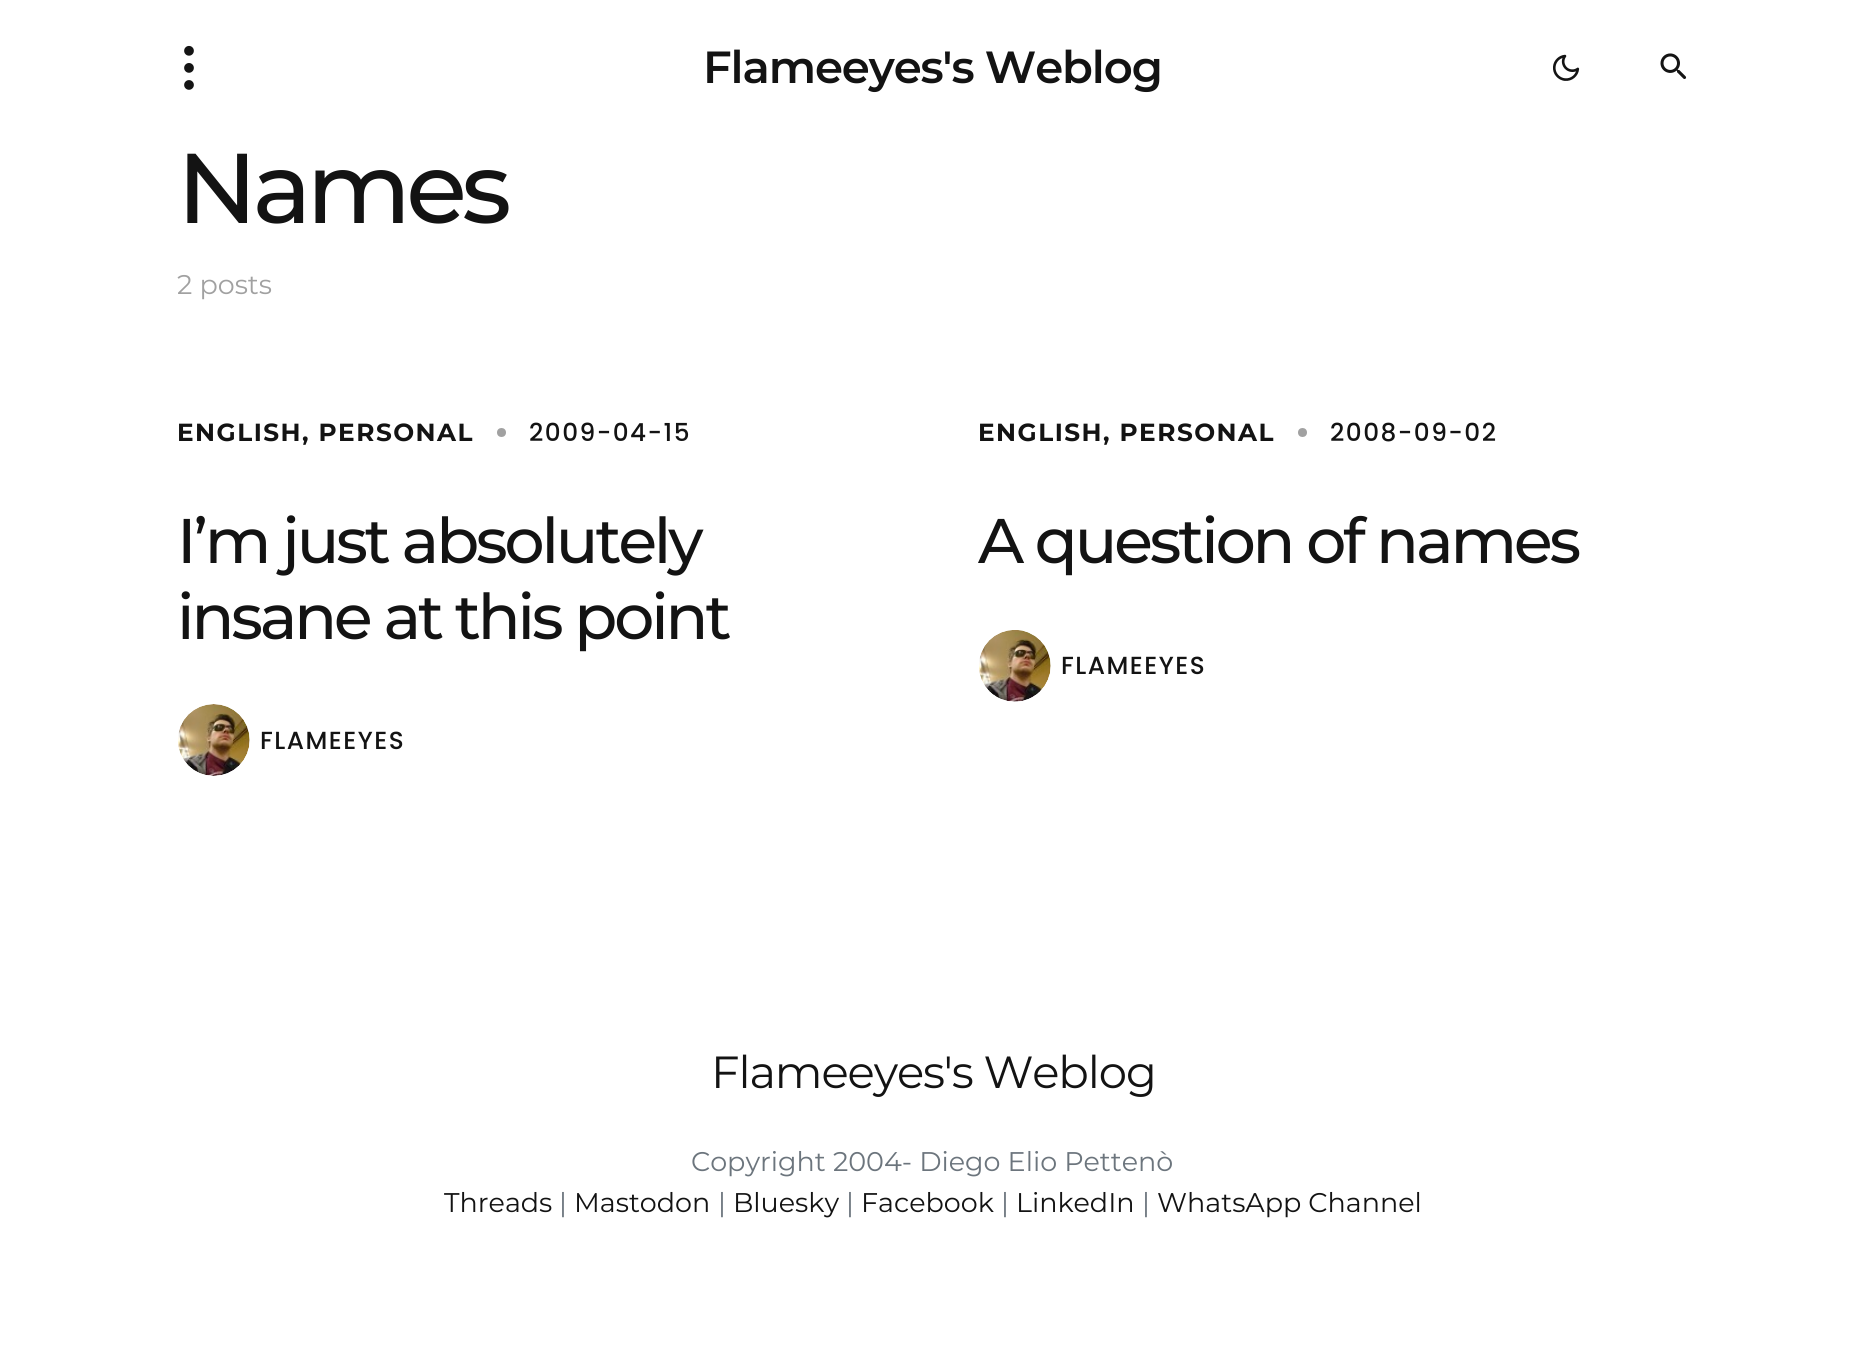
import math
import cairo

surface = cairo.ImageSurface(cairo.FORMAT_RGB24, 1864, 1371)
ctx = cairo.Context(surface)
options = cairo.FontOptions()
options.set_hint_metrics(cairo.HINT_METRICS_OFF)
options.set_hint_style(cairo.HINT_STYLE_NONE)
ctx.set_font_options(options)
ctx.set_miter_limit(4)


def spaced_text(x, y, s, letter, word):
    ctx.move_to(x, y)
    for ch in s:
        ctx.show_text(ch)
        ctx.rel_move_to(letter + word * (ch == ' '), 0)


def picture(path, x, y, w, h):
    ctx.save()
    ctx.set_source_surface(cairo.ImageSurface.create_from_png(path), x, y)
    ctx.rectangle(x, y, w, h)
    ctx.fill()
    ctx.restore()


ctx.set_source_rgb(1, 1, 1)
ctx.paint()
picture("img1.png", 184, 45, 10, 45)
ctx.select_font_face("Montserrat SemiBold")
ctx.set_font_size(45)
ctx.set_source_rgb(0.078, 0.078, 0.078)
spaced_text(703, 83, "Flameeyes's Weblog", -1.1, 0)
picture("img2.png", 1553, 54, 27, 27)
picture("img3.png", 1660, 53, 27, 26)
ctx.select_font_face("Montserrat Medium")
ctx.set_font_size(99)
spaced_text(177, 223, "Names", -5, 0)
ctx.select_font_face("Montserrat")
ctx.set_font_size(27)
ctx.set_source_rgb(0.631, 0.631, 0.631)
ctx.move_to(177, 294)
ctx.show_text("2 posts")
ctx.select_font_face("Montserrat", cairo.FONT_SLANT_NORMAL, cairo.FONT_WEIGHT_BOLD)
ctx.set_font_size(24.75)
ctx.set_source_rgb(0.078, 0.078, 0.078)
spaced_text(177, 441, "ENGLISH", 1.5, 0)
spaced_text(302, 441, ", PERSONAL", 1.5, 0)
ctx.set_source_rgb(0.631, 0.631, 0.631)
ctx.new_path()
ctx.arc(501.5, 432.5, 4.5, 0, 2 * math.pi)
ctx.fill()
ctx.select_font_face("Poppins Medium")
ctx.set_source_rgb(0.078, 0.078, 0.078)
spaced_text(529, 441, "2009-04-15", 1.5, 0)
ctx.select_font_face("Montserrat Medium")
ctx.set_font_size(63)
spaced_text(177, 563, "I’m just absolutely", -3.1, 0)
spaced_text(177, 639, "insane at this point", -3.1, 0)
picture("img4.png", 178, 704, 72, 72)
ctx.select_font_face("Poppins Medium")
ctx.set_font_size(24.75)
spaced_text(260, 749, "FLAMEEYES", 1.5, 0)
ctx.select_font_face("Montserrat", cairo.FONT_SLANT_NORMAL, cairo.FONT_WEIGHT_BOLD)
spaced_text(978, 441, "ENGLISH", 1.5, 0)
spaced_text(1103, 441, ", PERSONAL", 1.5, 0)
ctx.set_source_rgb(0.631, 0.631, 0.631)
ctx.new_path()
ctx.arc(1302.5, 432.5, 4.5, 0, 2 * math.pi)
ctx.fill()
ctx.select_font_face("Poppins Medium")
ctx.set_source_rgb(0.078, 0.078, 0.078)
spaced_text(1330, 441, "2008-09-02", 1.5, 0)
ctx.select_font_face("Montserrat Medium")
ctx.set_font_size(63)
spaced_text(978, 563, "A question of names", -3.1, 0)
picture("img5.png", 979, 630, 72, 72)
ctx.select_font_face("Poppins Medium")
ctx.set_font_size(24.75)
spaced_text(1061, 674, "FLAMEEYES", 1.5, 0)
ctx.select_font_face("Montserrat")
ctx.set_font_size(45)
spaced_text(711, 1088, "Flameeyes's Weblog", -1.1, 0)
ctx.set_font_size(27)
ctx.set_source_rgb(0.424, 0.459, 0.49)
ctx.move_to(691, 1171)
ctx.show_text("Copyright 2004- Diego Elio Pettenò")
ctx.set_source_rgb(0.078, 0.078, 0.078)
ctx.move_to(444, 1212)
ctx.show_text("Threads")
ctx.set_source_rgb(0.424, 0.459, 0.49)
ctx.move_to(559, 1212)
ctx.show_text("|")
ctx.set_source_rgb(0.078, 0.078, 0.078)
ctx.move_to(574, 1212)
ctx.show_text("Mastodon")
ctx.set_source_rgb(0.424, 0.459, 0.49)
ctx.move_to(718, 1212)
ctx.show_text("|")
ctx.set_source_rgb(0.078, 0.078, 0.078)
ctx.move_to(733, 1212)
ctx.show_text("Bluesky")
ctx.set_source_rgb(0.424, 0.459, 0.49)
ctx.move_to(846, 1212)
ctx.show_text("|")
ctx.set_source_rgb(0.078, 0.078, 0.078)
ctx.move_to(861, 1212)
ctx.show_text("Facebook")
ctx.set_source_rgb(0.424, 0.459, 0.49)
ctx.move_to(1001, 1212)
ctx.show_text("|")
ctx.set_source_rgb(0.078, 0.078, 0.078)
ctx.move_to(1016, 1212)
ctx.show_text("LinkedIn")
ctx.set_source_rgb(0.424, 0.459, 0.49)
ctx.move_to(1142, 1212)
ctx.show_text("|")
ctx.set_source_rgb(0.078, 0.078, 0.078)
ctx.move_to(1157, 1212)
ctx.show_text("WhatsApp Channel")
surface.write_to_png("page.png")
